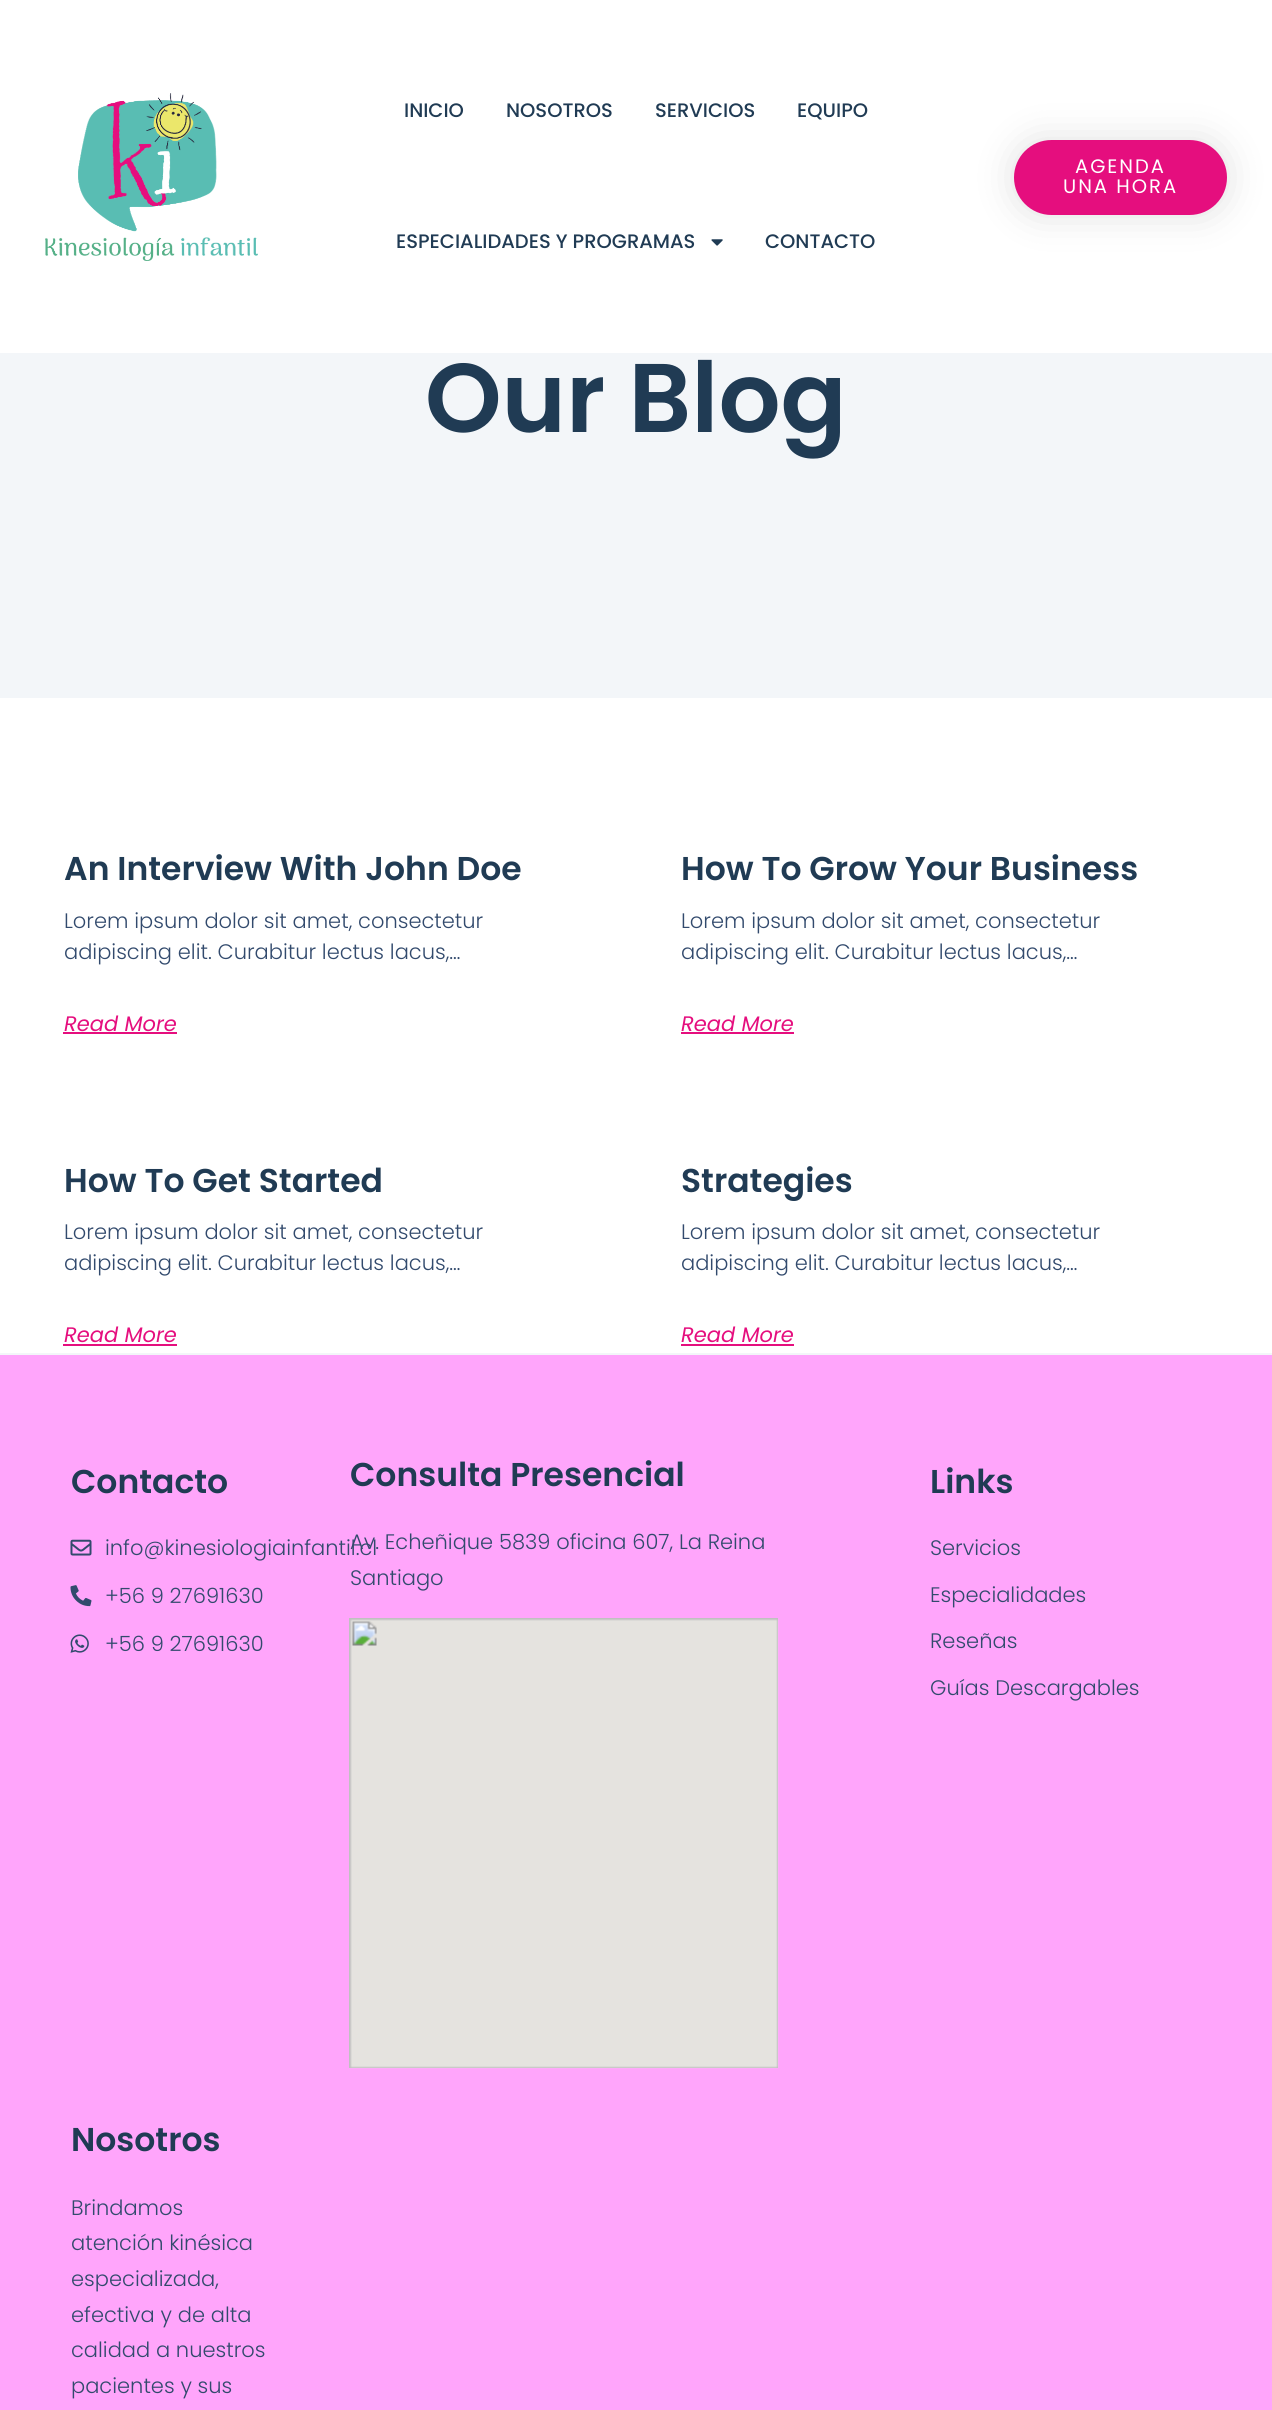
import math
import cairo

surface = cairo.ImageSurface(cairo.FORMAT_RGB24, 1272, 2410)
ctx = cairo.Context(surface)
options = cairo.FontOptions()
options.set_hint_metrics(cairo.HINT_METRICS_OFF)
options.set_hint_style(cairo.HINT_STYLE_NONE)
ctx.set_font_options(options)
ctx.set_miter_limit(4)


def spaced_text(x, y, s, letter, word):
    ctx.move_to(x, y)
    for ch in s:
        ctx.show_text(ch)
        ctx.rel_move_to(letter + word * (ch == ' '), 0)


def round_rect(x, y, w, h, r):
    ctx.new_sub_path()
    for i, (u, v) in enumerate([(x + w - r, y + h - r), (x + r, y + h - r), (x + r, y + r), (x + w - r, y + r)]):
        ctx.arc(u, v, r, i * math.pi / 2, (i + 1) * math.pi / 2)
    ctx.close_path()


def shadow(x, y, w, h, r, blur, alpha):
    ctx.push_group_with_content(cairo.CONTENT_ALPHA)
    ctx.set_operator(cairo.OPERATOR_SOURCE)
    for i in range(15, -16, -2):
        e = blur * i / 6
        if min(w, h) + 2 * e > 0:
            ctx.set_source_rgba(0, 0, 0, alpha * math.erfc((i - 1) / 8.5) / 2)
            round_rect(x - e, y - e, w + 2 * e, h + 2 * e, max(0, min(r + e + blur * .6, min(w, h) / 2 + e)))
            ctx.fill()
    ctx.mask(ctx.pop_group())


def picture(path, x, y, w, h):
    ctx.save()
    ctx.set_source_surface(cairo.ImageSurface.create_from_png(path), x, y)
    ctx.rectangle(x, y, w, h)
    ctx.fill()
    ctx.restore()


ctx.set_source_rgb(1, 1, 1)
ctx.paint()
picture("img1.png", 45, 93, 213, 168)
ctx.select_font_face("Poppins Medium")
ctx.set_font_size(19.5)
ctx.set_source_rgb(0.125, 0.231, 0.329)
ctx.move_to(404, 117)
ctx.show_text("INICIO")
ctx.move_to(506, 117)
ctx.show_text("NOSOTROS")
ctx.move_to(655, 117)
ctx.show_text("SERVICIOS")
ctx.move_to(797, 117)
ctx.show_text("EQUIPO")
ctx.move_to(396, 248)
ctx.show_text("ESPECIALIDADES Y PROGRAMAS")
picture("img2.png", 711, 239, 12, 7)
ctx.move_to(765, 248)
ctx.show_text("CONTACTO")
ctx.set_source_rgb(0, 0, 0)
shadow(1014, 140, 213, 75, 37.5, 20, 0.12)
ctx.set_source_rgb(0.898, 0.055, 0.494)
round_rect(1014, 140, 213, 75, 37.5)
ctx.fill()
ctx.select_font_face("Poppins")
ctx.set_source_rgb(1, 1, 1)
spaced_text(1075, 173, "AGENDA", 2, 0)
spaced_text(1063, 193, "UNA HORA", 2, 0)
ctx.set_source_rgb(0.953, 0.961, 0.973)
ctx.rectangle(0, 353, 1272, 345)
ctx.fill()
ctx.select_font_face("Poppins SemiBold")
ctx.set_font_size(97.5)
ctx.set_source_rgb(0.125, 0.231, 0.329)
ctx.move_to(425, 432)
ctx.show_text("Our Blog")
ctx.set_font_size(33)
ctx.move_to(64, 880)
ctx.show_text("An Interview With John Doe")
ctx.select_font_face("Poppins Light")
ctx.set_font_size(21)
ctx.set_source_rgb(0.196, 0.29, 0.427)
ctx.move_to(64, 928)
ctx.show_text("Lorem ipsum dolor sit amet, consectetur")
ctx.move_to(64, 959)
ctx.show_text("adipiscing elit. Curabitur lectus lacus,…")
ctx.select_font_face("Poppins", cairo.FONT_SLANT_ITALIC)
ctx.set_source_rgb(0.898, 0.055, 0.494)
ctx.move_to(64, 1031)
ctx.show_text("Read More")
ctx.rectangle(63, 1032, 114, 2)
ctx.fill()
ctx.select_font_face("Poppins SemiBold")
ctx.set_font_size(33)
ctx.set_source_rgb(0.125, 0.231, 0.329)
ctx.move_to(681, 880)
ctx.show_text("How To Grow Your Business")
ctx.select_font_face("Poppins Light")
ctx.set_font_size(21)
ctx.set_source_rgb(0.196, 0.29, 0.427)
ctx.move_to(681, 928)
ctx.show_text("Lorem ipsum dolor sit amet, consectetur")
ctx.move_to(681, 959)
ctx.show_text("adipiscing elit. Curabitur lectus lacus,…")
ctx.select_font_face("Poppins", cairo.FONT_SLANT_ITALIC)
ctx.set_source_rgb(0.898, 0.055, 0.494)
ctx.move_to(681, 1031)
ctx.show_text("Read More")
ctx.rectangle(681, 1032, 113, 2)
ctx.fill()
ctx.select_font_face("Poppins SemiBold")
ctx.set_font_size(33)
ctx.set_source_rgb(0.125, 0.231, 0.329)
ctx.move_to(64, 1192)
ctx.show_text("How To Get Started")
ctx.select_font_face("Poppins Light")
ctx.set_font_size(21)
ctx.set_source_rgb(0.196, 0.29, 0.427)
ctx.move_to(64, 1239)
ctx.show_text("Lorem ipsum dolor sit amet, consectetur")
ctx.move_to(64, 1270)
ctx.show_text("adipiscing elit. Curabitur lectus lacus,…")
ctx.select_font_face("Poppins", cairo.FONT_SLANT_ITALIC)
ctx.set_source_rgb(0.898, 0.055, 0.494)
ctx.move_to(64, 1342)
ctx.show_text("Read More")
ctx.rectangle(63, 1344, 114, 2)
ctx.fill()
ctx.select_font_face("Poppins SemiBold")
ctx.set_font_size(33)
ctx.set_source_rgb(0.125, 0.231, 0.329)
ctx.move_to(681, 1192)
ctx.show_text("Strategies")
ctx.select_font_face("Poppins Light")
ctx.set_font_size(21)
ctx.set_source_rgb(0.196, 0.29, 0.427)
ctx.move_to(681, 1239)
ctx.show_text("Lorem ipsum dolor sit amet, consectetur")
ctx.move_to(681, 1270)
ctx.show_text("adipiscing elit. Curabitur lectus lacus,…")
ctx.select_font_face("Poppins", cairo.FONT_SLANT_ITALIC)
ctx.set_source_rgb(0.898, 0.055, 0.494)
ctx.move_to(681, 1342)
ctx.show_text("Read More")
ctx.rectangle(681, 1344, 113, 2)
ctx.fill()
ctx.set_source_rgb(1, 0.647, 0.984)
ctx.rectangle(0, 1355, 1272, 1055)
ctx.fill()
ctx.set_source_rgb(0.953, 0.961, 0.973)
ctx.rectangle(0, 1353, 1272, 2)
ctx.fill()
ctx.select_font_face("Poppins SemiBold")
ctx.set_font_size(33)
ctx.set_source_rgb(0.125, 0.231, 0.329)
ctx.move_to(71, 1493)
ctx.show_text("Contacto")
picture("img3.png", 70, 1539, 22, 17)
ctx.select_font_face("Poppins Light")
ctx.set_font_size(21)
ctx.set_source_rgb(0.196, 0.29, 0.427)
ctx.move_to(105, 1555)
ctx.show_text("info@kinesiologiainfantil.cl")
picture("img4.png", 70, 1585, 22, 22)
ctx.move_to(105, 1603)
ctx.show_text("+56 9 27691630")
picture("img5.png", 70, 1634, 19, 19)
ctx.move_to(105, 1651)
ctx.show_text("+56 9 27691630")
ctx.select_font_face("Poppins SemiBold")
ctx.set_font_size(33)
ctx.set_source_rgb(0.125, 0.231, 0.329)
ctx.move_to(350, 1486)
ctx.show_text("Consulta Presencial")
ctx.select_font_face("Poppins Light")
ctx.set_font_size(21)
ctx.set_source_rgb(0.196, 0.29, 0.427)
ctx.move_to(350, 1549)
ctx.show_text("Av. Echeñique 5839 oficina 607, La Reina")
ctx.move_to(350, 1585)
ctx.show_text("Santiago")
picture("img6.png", 349, 1618, 430, 451)
ctx.select_font_face("Poppins SemiBold")
ctx.set_font_size(33)
ctx.set_source_rgb(0.125, 0.231, 0.329)
ctx.move_to(930, 1493)
ctx.show_text("Links")
ctx.select_font_face("Poppins Light")
ctx.set_font_size(21)
ctx.set_source_rgb(0.196, 0.29, 0.427)
ctx.move_to(930, 1555)
ctx.show_text("Servicios")
ctx.move_to(930, 1602)
ctx.show_text("Especialidades")
ctx.move_to(930, 1648)
ctx.show_text("Reseñas")
ctx.move_to(930, 1695)
ctx.show_text("Guías Descargables")
ctx.select_font_face("Poppins SemiBold")
ctx.set_font_size(33)
ctx.set_source_rgb(0.125, 0.231, 0.329)
ctx.move_to(71, 2151)
ctx.show_text("Nosotros")
ctx.select_font_face("Poppins Light")
ctx.set_font_size(21)
ctx.set_source_rgb(0.196, 0.29, 0.427)
ctx.move_to(71, 2215)
ctx.show_text("Brindamos")
ctx.move_to(71, 2250)
ctx.show_text("atención kinésica")
ctx.move_to(71, 2286)
ctx.show_text("especializada,")
ctx.move_to(71, 2322)
ctx.show_text("efectiva y de alta")
ctx.move_to(71, 2357)
ctx.show_text("calidad a nuestros")
ctx.move_to(71, 2393)
ctx.show_text("pacientes y sus")
surface.write_to_png("page.png")
